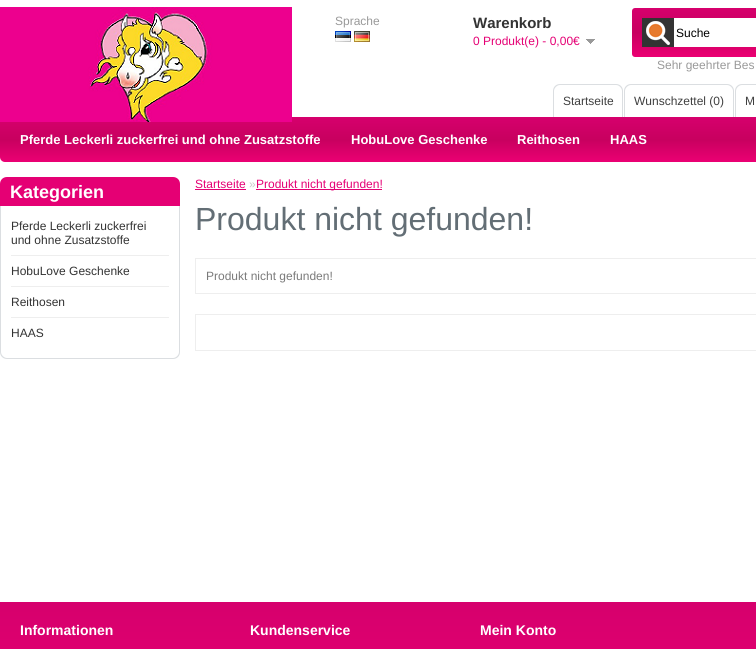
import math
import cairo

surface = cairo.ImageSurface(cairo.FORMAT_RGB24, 756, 649)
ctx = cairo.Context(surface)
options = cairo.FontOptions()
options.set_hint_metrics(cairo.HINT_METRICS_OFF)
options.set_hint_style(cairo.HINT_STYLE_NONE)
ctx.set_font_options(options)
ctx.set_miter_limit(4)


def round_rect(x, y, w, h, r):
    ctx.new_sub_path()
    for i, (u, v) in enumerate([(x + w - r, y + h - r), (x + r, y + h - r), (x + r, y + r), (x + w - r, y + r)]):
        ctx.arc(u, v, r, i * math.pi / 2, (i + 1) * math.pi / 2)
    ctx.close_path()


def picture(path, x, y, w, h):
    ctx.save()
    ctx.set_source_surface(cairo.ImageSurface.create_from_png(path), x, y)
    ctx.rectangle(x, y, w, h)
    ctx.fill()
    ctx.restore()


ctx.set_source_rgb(1, 1, 1)
ctx.paint()
gradient = cairo.LinearGradient(480, 117, 480, 162)
gradient.add_color_stop_rgba(0, 0.839, 0, 0.427, 1)
gradient.add_color_stop_rgba(0.5, 0.784, 0, 0.373, 1)
gradient.add_color_stop_rgba(1, 0.922, 0, 0.451, 1)
ctx.set_source(gradient)
round_rect(0, 117, 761, 45, 5)
ctx.fill()
picture("img1.png", 0, 7, 292, 115)
ctx.select_font_face("Liberation Sans")
ctx.set_font_size(12)
ctx.set_source_rgb(0.6, 0.6, 0.6)
ctx.move_to(335, 25)
ctx.show_text("Sprache")
picture("img2.png", 335, 31, 16, 11)
picture("img3.png", 354, 31, 16, 11)
ctx.select_font_face("Liberation Sans", cairo.FONT_SLANT_NORMAL, cairo.FONT_WEIGHT_BOLD)
ctx.set_font_size(15)
ctx.set_source_rgb(0.2, 0.2, 0.2)
ctx.move_to(473, 28)
ctx.show_text("Warenkorb")
ctx.select_font_face("Liberation Sans")
ctx.set_font_size(12)
ctx.set_source_rgb(0.898, 0, 0.455)
ctx.move_to(473, 45)
ctx.show_text("0 Produkt(e) - 0,00€")
picture("img4.png", 586, 39, 9, 5)
gradient = cairo.LinearGradient(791, 8, 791, 57)
gradient.add_color_stop_rgba(0, 0.839, 0, 0.427, 1)
gradient.add_color_stop_rgba(0.5, 0.784, 0, 0.373, 1)
gradient.add_color_stop_rgba(1, 0.922, 0, 0.451, 1)
ctx.set_source(gradient)
round_rect(632, 8, 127, 49, 3)
ctx.fill()
ctx.set_source_rgb(1, 1, 1)
ctx.rectangle(674, 19, 82, 27)
ctx.fill()
ctx.rectangle(642.5, 18.5, 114, 28)
ctx.set_line_width(1)
ctx.stroke()
ctx.set_source_rgb(0.2, 0.2, 0.2)
ctx.rectangle(642, 18, 32, 29)
ctx.fill()
picture("img5.png", 646, 21, 24, 24)
ctx.set_source_rgb(0, 0, 0)
ctx.move_to(676, 37)
ctx.show_text("Suche")
ctx.set_source_rgb(0.6, 0.6, 0.6)
ctx.move_to(657, 69)
ctx.show_text("Sehr geehrter Bes")
ctx.set_source_rgb(0.859, 0.871, 0.882)
ctx.set_fill_rule(cairo.FILL_RULE_EVEN_ODD)
ctx.new_path()
ctx.move_to(560, 84)
ctx.line_to(616, 84)
ctx.curve_to(620, 84, 623, 87, 623, 91)
ctx.line_to(623, 117)
ctx.line_to(553, 117)
ctx.line_to(553, 91)
ctx.curve_to(553, 87, 556, 84, 560, 84)
ctx.close_path()
ctx.move_to(560, 85)
ctx.line_to(616, 85)
ctx.curve_to(619, 85, 622, 88, 622, 91)
ctx.line_to(622, 117)
ctx.line_to(554, 117)
ctx.line_to(554, 91)
ctx.curve_to(554, 88, 557, 85, 560, 85)
ctx.close_path()
ctx.fill()
ctx.set_source_rgb(0.247, 0.247, 0.247)
ctx.move_to(563, 105)
ctx.show_text("Startseite")
ctx.set_source_rgb(0.859, 0.871, 0.882)
ctx.new_path()
ctx.move_to(631, 84)
ctx.line_to(727, 84)
ctx.curve_to(731, 84, 734, 87, 734, 91)
ctx.line_to(734, 117)
ctx.line_to(624, 117)
ctx.line_to(624, 91)
ctx.curve_to(624, 87, 627, 84, 631, 84)
ctx.close_path()
ctx.move_to(631, 85)
ctx.line_to(727, 85)
ctx.curve_to(730, 85, 733, 88, 733, 91)
ctx.line_to(733, 117)
ctx.line_to(625, 117)
ctx.line_to(625, 91)
ctx.curve_to(625, 88, 628, 85, 631, 85)
ctx.close_path()
ctx.fill()
ctx.set_source_rgb(0.247, 0.247, 0.247)
ctx.move_to(634, 105)
ctx.show_text("Wunschzettel (0)")
ctx.set_source_rgb(0.859, 0.871, 0.882)
ctx.new_path()
ctx.move_to(742, 84)
ctx.line_to(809, 84)
ctx.curve_to(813, 84, 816, 87, 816, 91)
ctx.line_to(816, 117)
ctx.line_to(735, 117)
ctx.line_to(735, 91)
ctx.curve_to(735, 87, 738, 84, 742, 84)
ctx.close_path()
ctx.move_to(742, 85)
ctx.line_to(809, 85)
ctx.curve_to(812, 85, 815, 88, 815, 91)
ctx.line_to(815, 117)
ctx.line_to(736, 117)
ctx.line_to(736, 91)
ctx.curve_to(736, 88, 739, 85, 742, 85)
ctx.close_path()
ctx.fill()
ctx.set_source_rgb(0.247, 0.247, 0.247)
ctx.move_to(745, 105)
ctx.show_text("M")
ctx.select_font_face("Liberation Sans", cairo.FONT_SLANT_NORMAL, cairo.FONT_WEIGHT_BOLD)
ctx.set_font_size(13)
ctx.set_source_rgb(1, 1, 1)
ctx.move_to(20, 144)
ctx.show_text("Pferde Leckerli zuckerfrei und ohne Zusatzstoffe")
ctx.move_to(351, 144)
ctx.show_text("HobuLove Geschenke")
ctx.move_to(517, 144)
ctx.show_text("Reithosen")
ctx.move_to(610, 144)
ctx.show_text("HAAS")
ctx.set_source_rgb(0.898, 0, 0.455)
ctx.new_path()
ctx.move_to(7, 177)
ctx.line_to(173, 177)
ctx.curve_to(177, 177, 180, 180, 180, 184)
ctx.line_to(180, 206)
ctx.line_to(0, 206)
ctx.line_to(0, 184)
ctx.curve_to(0, 180, 3, 177, 7, 177)
ctx.close_path()
ctx.fill()
ctx.set_font_size(18)
ctx.set_source_rgb(1, 1, 1)
ctx.move_to(10, 198)
ctx.show_text("Kategorien")
ctx.set_source_rgb(0.859, 0.871, 0.882)
ctx.new_path()
ctx.move_to(0, 206)
ctx.line_to(180, 206)
ctx.line_to(180, 352)
ctx.curve_to(180, 356, 177, 359, 173, 359)
ctx.line_to(7, 359)
ctx.curve_to(3, 359, 0, 356, 0, 352)
ctx.close_path()
ctx.move_to(1, 206)
ctx.line_to(179, 206)
ctx.line_to(179, 352)
ctx.curve_to(179, 355, 176, 358, 173, 358)
ctx.line_to(7, 358)
ctx.curve_to(4, 358, 1, 355, 1, 352)
ctx.close_path()
ctx.fill()
ctx.select_font_face("Liberation Sans")
ctx.set_font_size(12)
ctx.set_source_rgb(0.2, 0.2, 0.2)
ctx.move_to(11, 230)
ctx.show_text("Pferde Leckerli zuckerfrei")
ctx.move_to(11, 244)
ctx.show_text("und ohne Zusatzstoffe")
ctx.set_source_rgb(0.933, 0.933, 0.933)
ctx.rectangle(11, 255, 158, 1)
ctx.fill()
ctx.set_source_rgb(0.2, 0.2, 0.2)
ctx.move_to(11, 275)
ctx.show_text("HobuLove Geschenke")
ctx.set_source_rgb(0.933, 0.933, 0.933)
ctx.rectangle(11, 286, 158, 1)
ctx.fill()
ctx.set_source_rgb(0.2, 0.2, 0.2)
ctx.move_to(11, 306)
ctx.show_text("Reithosen")
ctx.set_source_rgb(0.933, 0.933, 0.933)
ctx.rectangle(11, 317, 158, 1)
ctx.fill()
ctx.set_source_rgb(0.2, 0.2, 0.2)
ctx.move_to(11, 337)
ctx.show_text("HAAS")
ctx.set_source_rgb(0.898, 0, 0.455)
ctx.move_to(195, 188)
ctx.show_text("Startseite")
ctx.rectangle(195, 189, 51, 1)
ctx.fill()
ctx.set_source_rgb(0.8, 0.8, 0.8)
ctx.move_to(249, 188)
ctx.show_text("»")
ctx.set_source_rgb(0.898, 0, 0.455)
ctx.rectangle(256, 189, 126, 1)
ctx.fill()
ctx.move_to(256, 188)
ctx.show_text("Produkt nicht gefunden!")
ctx.set_font_size(32)
ctx.set_source_rgb(0.388, 0.431, 0.459)
ctx.move_to(195, 230)
ctx.show_text("Produkt nicht gefunden!")
ctx.rectangle(195.5, 258.5, 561, 35)
ctx.set_source_rgb(0.933, 0.933, 0.933)
ctx.stroke()
ctx.set_font_size(12)
ctx.set_source_rgb(0.478, 0.478, 0.478)
ctx.move_to(206, 280)
ctx.show_text("Produkt nicht gefunden!")
ctx.rectangle(195.5, 314.5, 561, 36)
ctx.set_source_rgb(0.933, 0.933, 0.933)
ctx.stroke()
gradient = cairo.LinearGradient(480, 602, 480, 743)
gradient.add_color_stop_rgba(0, 0.839, 0, 0.427, 1)
gradient.add_color_stop_rgba(1, 0.922, 0, 0.451, 1)
ctx.set_source(gradient)
ctx.rectangle(0, 602, 756, 47)
ctx.fill()
ctx.select_font_face("Liberation Sans", cairo.FONT_SLANT_NORMAL, cairo.FONT_WEIGHT_BOLD)
ctx.set_font_size(14)
ctx.set_source_rgb(1, 1, 1)
ctx.move_to(20, 635)
ctx.show_text("Informationen")
ctx.move_to(250, 635)
ctx.show_text("Kundenservice")
ctx.move_to(480, 635)
ctx.show_text("Mein Konto")
surface.write_to_png("page.png")
